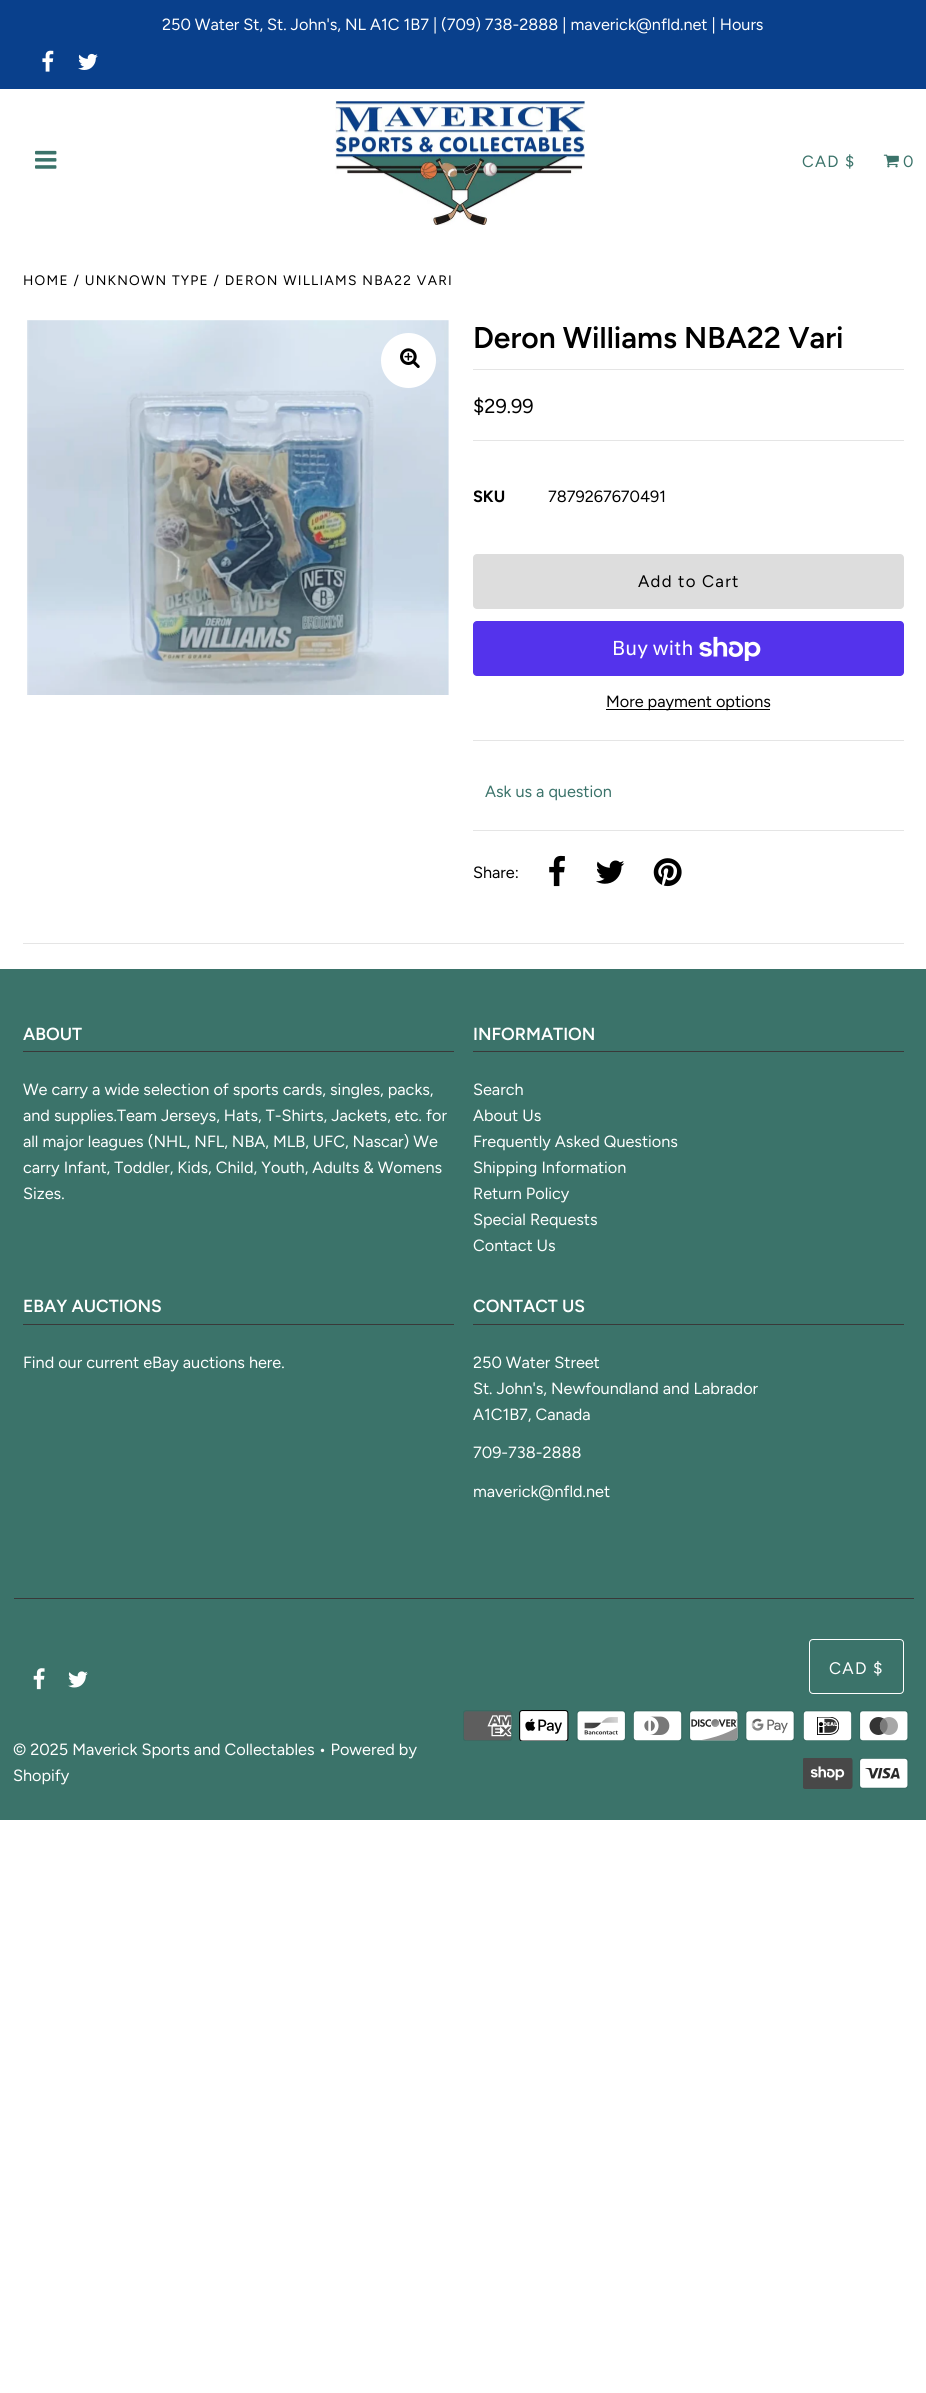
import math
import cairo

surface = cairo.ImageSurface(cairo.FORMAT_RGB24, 926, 2393)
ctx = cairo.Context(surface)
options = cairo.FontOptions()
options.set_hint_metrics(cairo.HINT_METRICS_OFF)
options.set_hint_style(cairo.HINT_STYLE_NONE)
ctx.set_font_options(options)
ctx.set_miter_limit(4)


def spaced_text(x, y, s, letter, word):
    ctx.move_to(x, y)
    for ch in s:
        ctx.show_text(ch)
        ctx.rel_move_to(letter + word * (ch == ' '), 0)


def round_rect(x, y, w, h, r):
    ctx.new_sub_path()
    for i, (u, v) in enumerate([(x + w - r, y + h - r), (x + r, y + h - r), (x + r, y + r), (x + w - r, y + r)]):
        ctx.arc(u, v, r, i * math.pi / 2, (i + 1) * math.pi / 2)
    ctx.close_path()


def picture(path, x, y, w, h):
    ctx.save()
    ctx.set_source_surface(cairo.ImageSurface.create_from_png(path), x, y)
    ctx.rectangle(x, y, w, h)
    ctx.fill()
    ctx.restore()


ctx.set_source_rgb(1, 1, 1)
ctx.paint()
ctx.set_source_rgb(0.039, 0.251, 0.549)
ctx.rectangle(0, 0, 926, 89)
ctx.fill()
ctx.select_font_face("Figtree")
ctx.set_font_size(16.25)
ctx.set_source_rgb(1, 1, 1)
ctx.move_to(162, 30)
ctx.show_text("250 Water St, St. John's, NL A1C 1B7 | (709) 738-2888 | maverick@nfld.net | Hours")
picture("img1.png", 42, 50, 12, 22)
picture("img2.png", 78, 53, 20, 17)
picture("img3.png", 35, 150, 22, 19)
picture("img4.png", 335, 101, 250, 124)
ctx.set_source_rgb(0.231, 0.451, 0.416)
spaced_text(802, 167, "CAD $", 1.25, 0)
picture("img5.png", 883, 154, 16, 14)
ctx.move_to(903, 167)
ctx.show_text("0")
ctx.set_font_size(13.75)
ctx.set_source_rgb(0, 0, 0)
spaced_text(23, 285, "HOME / UNKNOWN TYPE / DERON WILLIAMS NBA22 VARI", 1.25, 0)
picture("img6.png", 27, 320, 422, 375)
ctx.set_source_rgb(1, 1, 1)
ctx.arc(408.5, 360.5, 27.5, 0, 2 * math.pi)
ctx.fill()
picture("img7.png", 400, 348, 20, 20)
ctx.select_font_face("Figtree SemiBold")
ctx.set_font_size(30)
ctx.set_source_rgb(0, 0, 0)
ctx.move_to(473, 348)
ctx.show_text("Deron Williams NBA22 Vari")
ctx.set_source_rgb(0.898, 0.898, 0.898)
ctx.rectangle(473, 369, 431, 1)
ctx.fill()
ctx.rectangle(473, 740, 431, 1)
ctx.fill()
ctx.rectangle(473, 440, 431, 1)
ctx.fill()
ctx.select_font_face("Figtree")
ctx.set_font_size(20)
ctx.set_source_rgb(0, 0, 0)
ctx.move_to(473, 413)
ctx.show_text("$29.99")
ctx.select_font_face("Figtree", cairo.FONT_SLANT_NORMAL, cairo.FONT_WEIGHT_BOLD)
ctx.set_font_size(16.25)
ctx.move_to(473, 502)
ctx.show_text("SKU")
ctx.select_font_face("Figtree")
ctx.move_to(548, 502)
ctx.show_text("7879267670491")
ctx.set_source_rgb(0.867, 0.867, 0.867)
round_rect(473, 554, 431, 55, 4)
ctx.fill()
ctx.set_font_size(16.75)
ctx.set_source_rgb(0, 0, 0)
spaced_text(638, 587, "Add to Cart", 1.25, 0)
ctx.set_source_rgb(0.329, 0.2, 0.922)
round_rect(473, 621, 431, 55, 4)
ctx.fill()
ctx.select_font_face("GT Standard")
ctx.set_font_size(20)
ctx.set_source_rgb(1, 1, 1)
ctx.move_to(612, 655)
ctx.show_text("Buy with")
picture("img8.png", 699, 636, 62, 25)
ctx.set_source_rgb(0, 0, 0)
ctx.rectangle(606, 709, 164, 1)
ctx.fill()
ctx.select_font_face("Figtree")
ctx.set_font_size(16.25)
ctx.move_to(606, 707)
ctx.show_text("More payment options")
ctx.set_source_rgb(0.231, 0.451, 0.416)
ctx.move_to(485, 797)
ctx.show_text("Ask us a question")
ctx.set_source_rgb(0.898, 0.898, 0.898)
ctx.rectangle(473, 830, 431, 1)
ctx.fill()
ctx.set_source_rgb(0, 0, 0)
ctx.move_to(473, 878)
ctx.show_text("Share:")
picture("img9.png", 549, 855, 16, 32)
picture("img10.png", 596, 860, 29, 24)
picture("img11.png", 653, 858, 29, 29)
ctx.set_source_rgb(0.898, 0.898, 0.898)
ctx.rectangle(23, 943, 881, 1)
ctx.fill()
ctx.set_source_rgb(0.231, 0.451, 0.416)
ctx.rectangle(0, 969, 926, 851)
ctx.fill()
ctx.set_source_rgb(0.224, 0.224, 0.224)
ctx.rectangle(23, 1051, 431, 1)
ctx.fill()
ctx.select_font_face("Figtree SemiBold")
ctx.set_font_size(17.5)
ctx.set_source_rgb(1, 1, 1)
ctx.move_to(23, 1040)
ctx.show_text("ABOUT")
ctx.select_font_face("Figtree")
ctx.set_font_size(16.25)
ctx.move_to(23, 1095)
ctx.show_text("We carry a wide selection of sports cards, singles, packs,")
ctx.move_to(23, 1121)
ctx.show_text("and supplies.Team Jerseys, Hats, T-Shirts, Jackets, etc. for")
ctx.move_to(23, 1147)
ctx.show_text("all major leagues (NHL, NFL, NBA, MLB, UFC, Nascar) We")
ctx.move_to(23, 1173)
ctx.show_text("carry Infant, Toddler, Kids, Child, Youth, Adults & Womens")
ctx.move_to(23, 1199)
ctx.show_text("Sizes.")
ctx.set_source_rgb(0.224, 0.224, 0.224)
ctx.rectangle(473, 1051, 431, 1)
ctx.fill()
ctx.select_font_face("Figtree SemiBold")
ctx.set_font_size(17.5)
ctx.set_source_rgb(1, 1, 1)
ctx.move_to(473, 1040)
ctx.show_text("INFORMATION")
ctx.select_font_face("Figtree")
ctx.set_font_size(16.25)
ctx.move_to(473, 1095)
ctx.show_text("Search")
ctx.move_to(473, 1121)
ctx.show_text("About Us")
ctx.move_to(473, 1147)
ctx.show_text("Frequently Asked Questions")
ctx.move_to(473, 1173)
ctx.show_text("Shipping Information")
ctx.move_to(473, 1199)
ctx.show_text("Return Policy")
ctx.move_to(473, 1225)
ctx.show_text("Special Requests")
ctx.move_to(473, 1251)
ctx.show_text("Contact Us")
ctx.set_source_rgb(0.224, 0.224, 0.224)
ctx.rectangle(23, 1324, 431, 1)
ctx.fill()
ctx.select_font_face("Figtree SemiBold")
ctx.set_font_size(17.5)
ctx.set_source_rgb(1, 1, 1)
ctx.move_to(23, 1312)
ctx.show_text("EBAY AUCTIONS")
ctx.select_font_face("Figtree")
ctx.set_font_size(16.25)
ctx.move_to(23, 1368)
ctx.show_text("Find our current eBay auctions here.")
ctx.set_source_rgb(0.224, 0.224, 0.224)
ctx.rectangle(473, 1324, 431, 1)
ctx.fill()
ctx.select_font_face("Figtree SemiBold")
ctx.set_font_size(17.5)
ctx.set_source_rgb(1, 1, 1)
ctx.move_to(473, 1312)
ctx.show_text("CONTACT US")
ctx.select_font_face("Figtree")
ctx.set_font_size(16.25)
ctx.move_to(473, 1368)
ctx.show_text("250 Water Street")
ctx.move_to(473, 1394)
ctx.show_text("St. John's, Newfoundland and Labrador")
ctx.move_to(473, 1420)
ctx.show_text("A1C1B7, Canada")
ctx.move_to(473, 1458)
ctx.show_text("709-738-2888")
ctx.move_to(473, 1497)
ctx.show_text("maverick@nfld.net")
ctx.set_source_rgb(0.224, 0.224, 0.224)
ctx.rectangle(14, 1598, 900, 1)
ctx.fill()
round_rect(809.5, 1639.5, 94, 54, 3.5)
ctx.set_source_rgb(1, 1, 1)
ctx.set_line_width(1)
ctx.stroke()
ctx.set_font_size(16.75)
spaced_text(829, 1674, "CAD $", 1.25, 0)
picture("img12.png", 463, 1710, 50, 31)
picture("img13.png", 519, 1710, 50, 31)
picture("img14.png", 576, 1710, 50, 31)
picture("img15.png", 633, 1710, 50, 31)
picture("img16.png", 689, 1710, 50, 31)
picture("img17.png", 745, 1710, 50, 31)
picture("img18.png", 803, 1710, 49, 31)
picture("img19.png", 859, 1710, 50, 31)
picture("img20.png", 803, 1758, 50, 31)
picture("img21.png", 859, 1758, 50, 31)
picture("img22.png", 33, 1668, 12, 22)
picture("img23.png", 68, 1671, 20, 17)
ctx.set_font_size(16.25)
ctx.move_to(13, 1755)
ctx.show_text("© 2025 Maverick Sports and Collectables • Powered by")
ctx.move_to(13, 1781)
ctx.show_text("Shopify")
surface.write_to_png("page.png")
